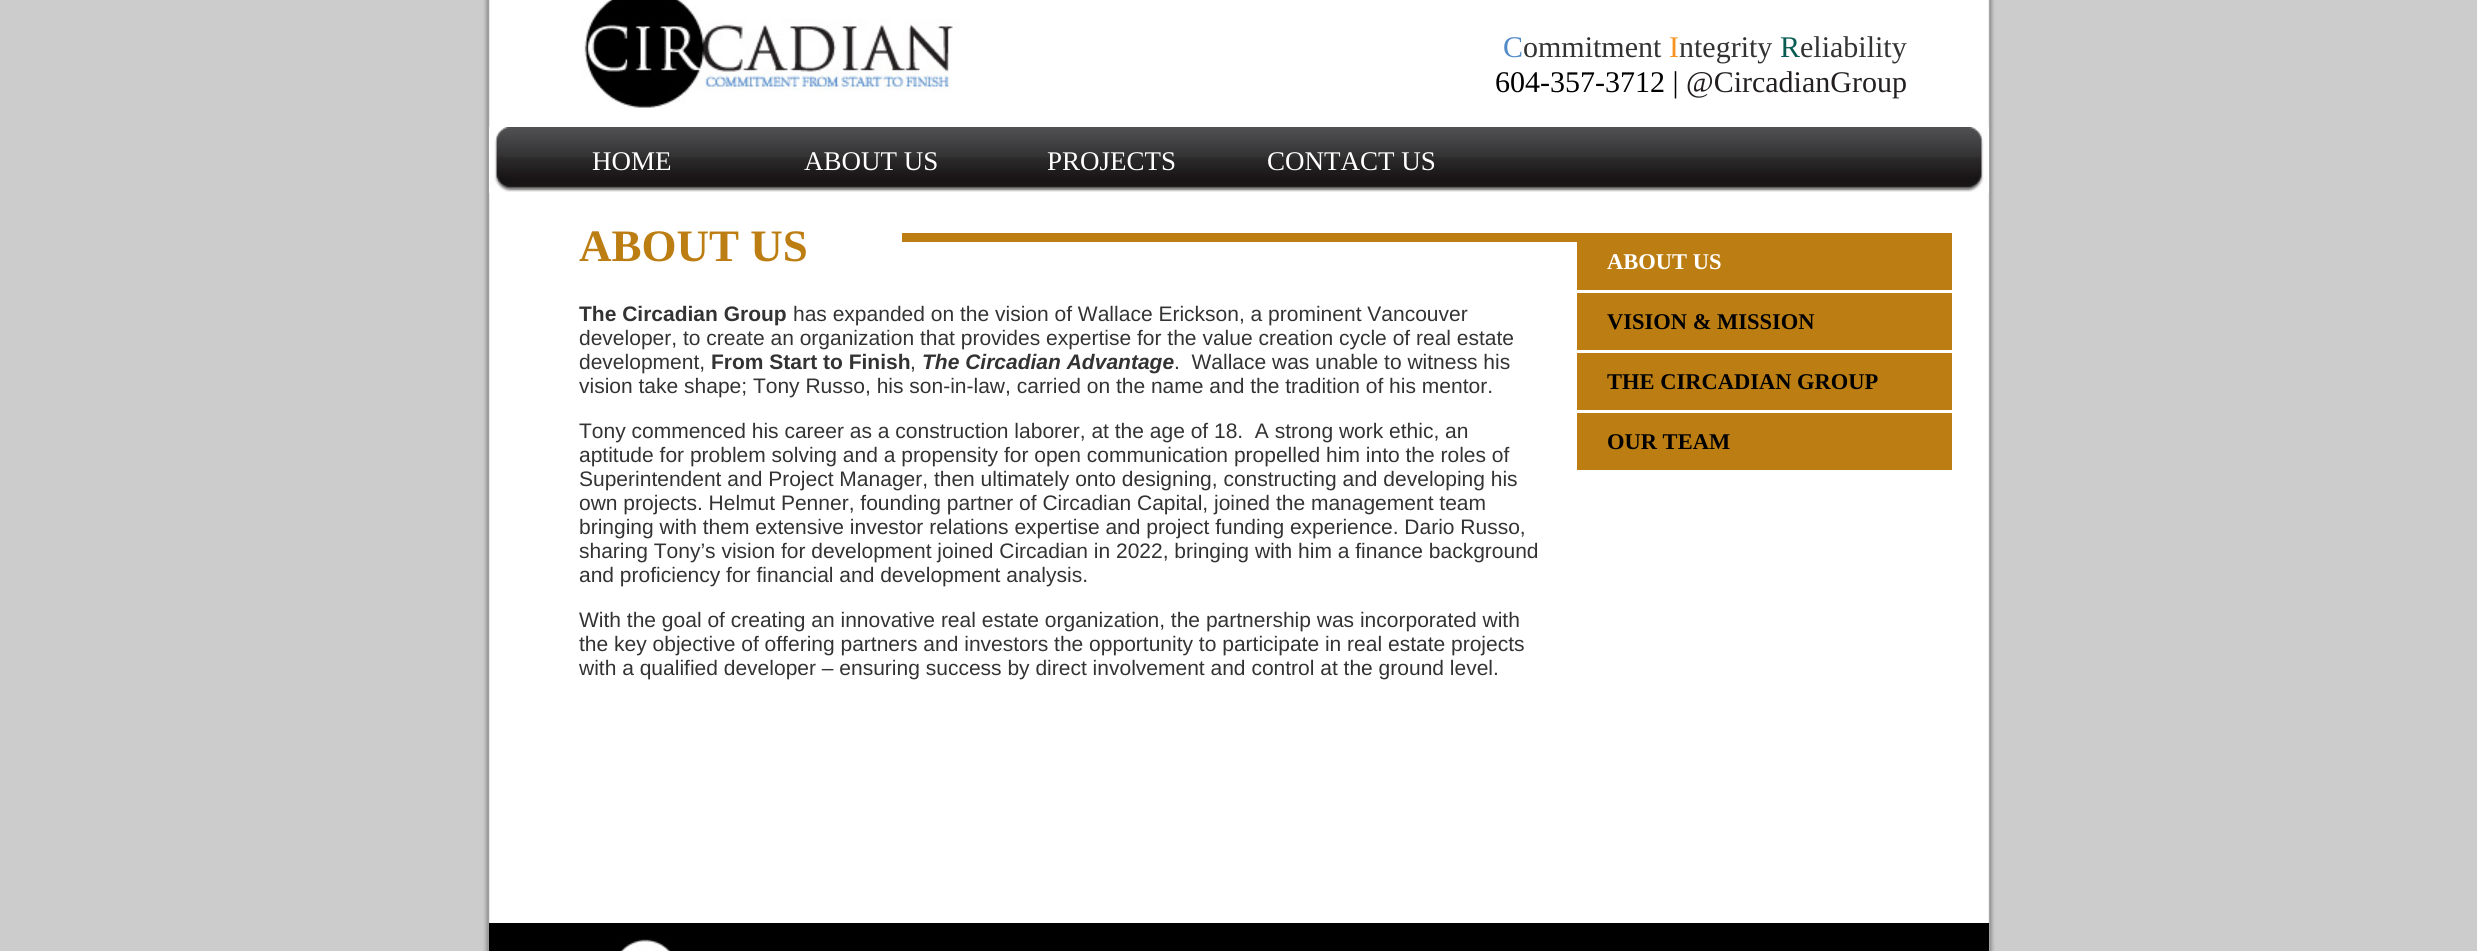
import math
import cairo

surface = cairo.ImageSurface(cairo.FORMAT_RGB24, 2477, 951)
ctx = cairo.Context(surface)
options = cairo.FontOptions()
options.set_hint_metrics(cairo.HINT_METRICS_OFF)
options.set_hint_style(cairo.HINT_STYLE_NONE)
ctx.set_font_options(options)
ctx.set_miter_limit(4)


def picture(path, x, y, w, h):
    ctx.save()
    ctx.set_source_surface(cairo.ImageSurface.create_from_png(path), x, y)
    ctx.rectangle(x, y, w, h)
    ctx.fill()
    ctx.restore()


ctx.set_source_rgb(0.8, 0.8, 0.8)
ctx.paint()
picture("img1.png", 483, 0, 1512, 951)
picture("img2.png", 581, 0, 379, 108)
ctx.select_font_face("Liberation Serif")
ctx.set_font_size(30)
ctx.set_source_rgb(0.322, 0.541, 0.784)
ctx.move_to(1503, 57)
ctx.show_text("C")
ctx.set_source_rgb(0.2, 0.2, 0.2)
ctx.move_to(1523, 57)
ctx.show_text("ommitment")
ctx.set_source_rgb(0.969, 0.576, 0.129)
ctx.move_to(1669, 57)
ctx.show_text("I")
ctx.set_source_rgb(0.2, 0.2, 0.2)
ctx.move_to(1679, 57)
ctx.show_text("ntegrity")
ctx.set_source_rgb(0.035, 0.357, 0.325)
ctx.move_to(1780, 57)
ctx.show_text("R")
ctx.set_source_rgb(0.2, 0.2, 0.2)
ctx.move_to(1800, 57)
ctx.show_text("eliability")
ctx.set_source_rgb(0, 0, 0)
ctx.move_to(1495, 92)
ctx.show_text("604-357-3712 |")
ctx.set_source_rgb(0.137, 0.122, 0.125)
ctx.move_to(1686, 92)
ctx.show_text("@CircadianGroup")
picture("img3.png", 489, 127, 1500, 66)
ctx.set_font_size(27)
ctx.set_source_rgb(1, 1, 1)
ctx.move_to(592, 170)
ctx.show_text("HOME")
ctx.move_to(804, 170)
ctx.show_text("ABOUT US")
ctx.move_to(1047, 170)
ctx.show_text("PROJECTS")
ctx.move_to(1267, 170)
ctx.show_text("CONTACT US")
ctx.select_font_face("Liberation Serif", cairo.FONT_SLANT_NORMAL, cairo.FONT_WEIGHT_BOLD)
ctx.set_font_size(45)
ctx.set_source_rgb(0.737, 0.494, 0.075)
ctx.move_to(579, 261)
ctx.show_text("ABOUT US")
ctx.select_font_face("Liberation Sans", cairo.FONT_SLANT_NORMAL, cairo.FONT_WEIGHT_BOLD)
ctx.set_font_size(21)
ctx.set_source_rgb(0.2, 0.2, 0.2)
ctx.move_to(579, 321)
ctx.show_text("The Circadian Group")
ctx.select_font_face("Liberation Sans")
ctx.move_to(793, 321)
ctx.show_text("has expanded on the vision of Wallace Erickson, a prominent Vancouver")
ctx.move_to(579, 345)
ctx.show_text("developer, to create an organization that provides expertise for the value creation cycle of real estate")
ctx.move_to(579, 369)
ctx.show_text("development,")
ctx.select_font_face("Liberation Sans", cairo.FONT_SLANT_NORMAL, cairo.FONT_WEIGHT_BOLD)
ctx.move_to(711, 369)
ctx.show_text("From Start to Finish")
ctx.select_font_face("Liberation Sans")
ctx.move_to(910, 369)
ctx.show_text(",")
ctx.select_font_face("Liberation Sans", cairo.FONT_SLANT_ITALIC, cairo.FONT_WEIGHT_BOLD)
ctx.move_to(922, 369)
ctx.show_text("The Circadian Advantage")
ctx.select_font_face("Liberation Sans")
ctx.move_to(1174, 369)
ctx.show_text(".  Wallace was unable to witness his")
ctx.move_to(579, 393)
ctx.show_text("vision take shape; Tony Russo, his son-in-law, carried on the name and the tradition of his mentor.")
ctx.move_to(579, 438)
ctx.show_text("Tony commenced his career as a construction laborer, at the age of 18.  A strong work ethic, an")
ctx.move_to(579, 462)
ctx.show_text("aptitude for problem solving and a propensity for open communication propelled him into the roles of")
ctx.move_to(579, 486)
ctx.show_text("Superintendent and Project Manager, then ultimately onto designing, constructing and developing his")
ctx.move_to(579, 510)
ctx.show_text("own projects. Helmut Penner, founding partner of Circadian Capital, joined the management team")
ctx.move_to(579, 534)
ctx.show_text("bringing with them extensive investor relations expertise and project funding experience. Dario Russo,")
ctx.move_to(579, 558)
ctx.show_text("sharing Tony’s vision for development joined Circadian in 2022, bringing with him a finance background")
ctx.move_to(579, 582)
ctx.show_text("and proficiency for financial and development analysis.")
ctx.move_to(579, 627)
ctx.show_text("With the goal of creating an innovative real estate organization, the partnership was incorporated with")
ctx.move_to(579, 651)
ctx.show_text("the key objective of offering partners and investors the opportunity to participate in real estate projects")
ctx.move_to(579, 675)
ctx.show_text("with a qualified developer – ensuring success by direct involvement and control at the ground level.")
ctx.set_source_rgb(0.737, 0.494, 0.075)
ctx.rectangle(902, 233, 675, 9)
ctx.fill()
ctx.rectangle(1577, 233, 375, 57)
ctx.fill()
ctx.select_font_face("Liberation Serif", cairo.FONT_SLANT_NORMAL, cairo.FONT_WEIGHT_BOLD)
ctx.set_font_size(22.5)
ctx.set_source_rgb(1, 1, 1)
ctx.move_to(1607, 269)
ctx.show_text("ABOUT US")
ctx.set_source_rgb(0.737, 0.494, 0.075)
ctx.rectangle(1577, 293, 375, 57)
ctx.fill()
ctx.set_source_rgb(0, 0, 0)
ctx.move_to(1607, 329)
ctx.show_text("VISION & MISSION")
ctx.set_source_rgb(0.737, 0.494, 0.075)
ctx.rectangle(1577, 353, 375, 57)
ctx.fill()
ctx.set_source_rgb(0, 0, 0)
ctx.move_to(1607, 389)
ctx.show_text("THE CIRCADIAN GROUP")
ctx.set_source_rgb(0.737, 0.494, 0.075)
ctx.rectangle(1577, 413, 375, 57)
ctx.fill()
ctx.set_source_rgb(0, 0, 0)
ctx.move_to(1607, 449)
ctx.show_text("OUR TEAM")
ctx.rectangle(489, 923, 1500, 28)
ctx.fill()
picture("img4.png", 620, 939, 51, 12)
surface.write_to_png("page.png")
